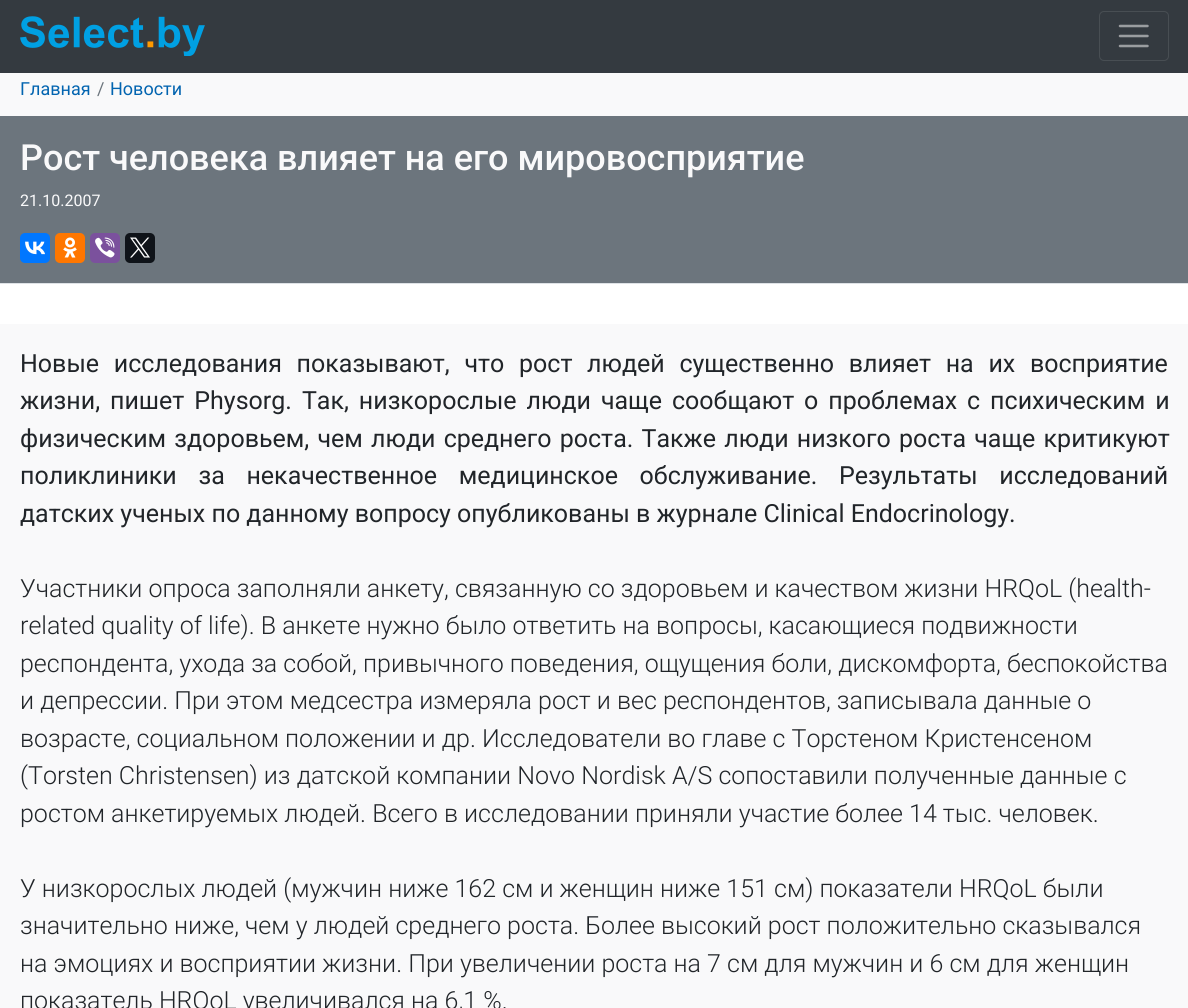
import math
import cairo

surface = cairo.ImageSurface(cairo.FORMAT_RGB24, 1188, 1008)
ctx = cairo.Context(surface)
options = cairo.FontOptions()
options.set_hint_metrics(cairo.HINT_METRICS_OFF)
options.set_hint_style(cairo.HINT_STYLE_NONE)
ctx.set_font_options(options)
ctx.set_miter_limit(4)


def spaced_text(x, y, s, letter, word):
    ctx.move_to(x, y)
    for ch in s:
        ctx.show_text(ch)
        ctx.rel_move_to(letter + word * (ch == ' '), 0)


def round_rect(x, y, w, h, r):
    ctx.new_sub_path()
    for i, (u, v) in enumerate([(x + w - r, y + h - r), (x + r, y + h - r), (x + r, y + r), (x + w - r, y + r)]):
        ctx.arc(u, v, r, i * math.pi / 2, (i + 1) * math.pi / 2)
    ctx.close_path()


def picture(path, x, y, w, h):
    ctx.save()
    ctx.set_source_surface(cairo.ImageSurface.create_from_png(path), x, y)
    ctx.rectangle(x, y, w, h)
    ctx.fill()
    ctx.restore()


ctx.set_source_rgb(0.973, 0.976, 0.98)
ctx.paint()
ctx.set_source_rgb(0.204, 0.227, 0.251)
ctx.rectangle(0, 0, 1188, 73)
ctx.fill()
picture("img1.png", 20, 16, 185, 40)
round_rect(1099.5, 11.5, 69, 49, 4.5)
ctx.set_source_rgb(0.282, 0.306, 0.325)
ctx.set_line_width(1)
ctx.stroke()
ctx.new_path()
ctx.move_to(1120, 26)
ctx.line_to(1147.5, 26)
ctx.move_to(1120, 36)
ctx.line_to(1147.5, 36)
ctx.move_to(1120, 46)
ctx.line_to(1147.5, 46)
ctx.set_source_rgb(0.604, 0.616, 0.627)
ctx.set_line_width(2.5)
ctx.set_line_cap(cairo.LINE_CAP_ROUND)
ctx.stroke()
ctx.select_font_face("Roboto")
ctx.set_font_size(18)
ctx.set_source_rgb(0.008, 0.392, 0.69)
ctx.move_to(20, 95)
ctx.show_text("Главная")
ctx.set_source_rgb(0.424, 0.459, 0.49)
ctx.move_to(97, 95)
ctx.show_text("/")
ctx.set_source_rgb(0.008, 0.392, 0.69)
ctx.move_to(110, 95)
ctx.show_text("Новости")
ctx.set_source_rgb(0.424, 0.459, 0.49)
ctx.rectangle(0, 116, 1188, 167)
ctx.fill()
ctx.select_font_face("Roboto Medium")
ctx.set_font_size(36)
ctx.set_source_rgb(0.973, 0.976, 0.98)
ctx.move_to(20, 170)
ctx.show_text("Рост человека влияет на его мировосприятие")
ctx.select_font_face("Roboto")
ctx.set_font_size(16)
ctx.move_to(20, 206)
ctx.show_text("21.10.2007")
ctx.set_source_rgb(0, 0.467, 1)
round_rect(20, 233, 30, 30, 5)
ctx.fill()
picture("img2.png", 25, 241, 20, 14)
ctx.set_source_rgb(1, 0.467, 0)
round_rect(55, 233, 30, 30, 5)
ctx.fill()
picture("img3.png", 63, 237, 14, 21)
ctx.set_source_rgb(0.482, 0.318, 0.616)
round_rect(90, 233, 30, 30, 5)
ctx.fill()
picture("img4.png", 95, 237, 20, 21)
ctx.set_source_rgb(0.059, 0.078, 0.098)
round_rect(125, 233, 30, 30, 5)
ctx.fill()
picture("img5.png", 130, 237, 20, 21)
ctx.set_source_rgb(1, 1, 1)
ctx.rectangle(0, 284, 1188, 40)
ctx.fill()
ctx.set_source_rgb(0.871, 0.886, 0.902)
ctx.rectangle(0, 283, 1188, 1)
ctx.fill()
ctx.set_font_size(25)
ctx.set_source_rgb(0.129, 0.145, 0.161)
spaced_text(20, 372, "Новые исследования показывают, что рост людей существенно влияет на их восприятие", 0, 8.5)
spaced_text(20, 409, "жизни, пишет Physorg. Так, низкорослые люди чаще сообщают о проблемах с психическим и", 0, 3.75)
spaced_text(20, 447, "физическим здоровьем, чем люди среднего роста. Также люди низкого роста чаще критикуют", 0, 2)
spaced_text(20, 484, "поликлиники за некачественное медицинское обслуживание. Результаты исследований", 0, 15.5)
ctx.move_to(20, 522)
ctx.show_text("датских ученых по данному вопросу опубликованы в журнале Clinical Endocrinology.")
ctx.select_font_face("Roboto Light")
ctx.move_to(20, 597)
ctx.show_text("Участники опроса заполняли анкету, связанную со здоровьем и качеством жизни HRQoL (health-")
ctx.move_to(20, 634)
ctx.show_text("related quality of life). В анкете нужно было ответить на вопросы, касающиеся подвижности")
ctx.move_to(20, 672)
ctx.show_text("респондента, ухода за собой, привычного поведения, ощущения боли, дискомфорта, беспокойства")
ctx.move_to(20, 709)
ctx.show_text("и депрессии. При этом медсестра измеряла рост и вес респондентов, записывала данные о")
ctx.move_to(20, 747)
ctx.show_text("возрасте, социальном положении и др. Исследователи во главе с Торстеном Кристенсеном")
ctx.move_to(20, 784)
ctx.show_text("(Torsten Christensen) из датской компании Novo Nordisk A/S сопоставили полученные данные с")
ctx.move_to(20, 822)
ctx.show_text("ростом анкетируемых людей. Всего в исследовании приняли участие более 14 тыс. человек.")
ctx.move_to(20, 897)
ctx.show_text("У низкорослых людей (мужчин ниже 162 см и женщин ниже 151 см) показатели HRQoL были")
ctx.move_to(20, 934)
ctx.show_text("значительно ниже, чем у людей среднего роста. Более высокий рост положительно сказывался")
ctx.move_to(20, 972)
ctx.show_text("на эмоциях и восприятии жизни. При увеличении роста на 7 см для мужчин и 6 см для женщин")
ctx.move_to(20, 1009)
ctx.show_text("показатель HRQoL увеличивался на 6,1 %.")
surface.write_to_png("page.png")
